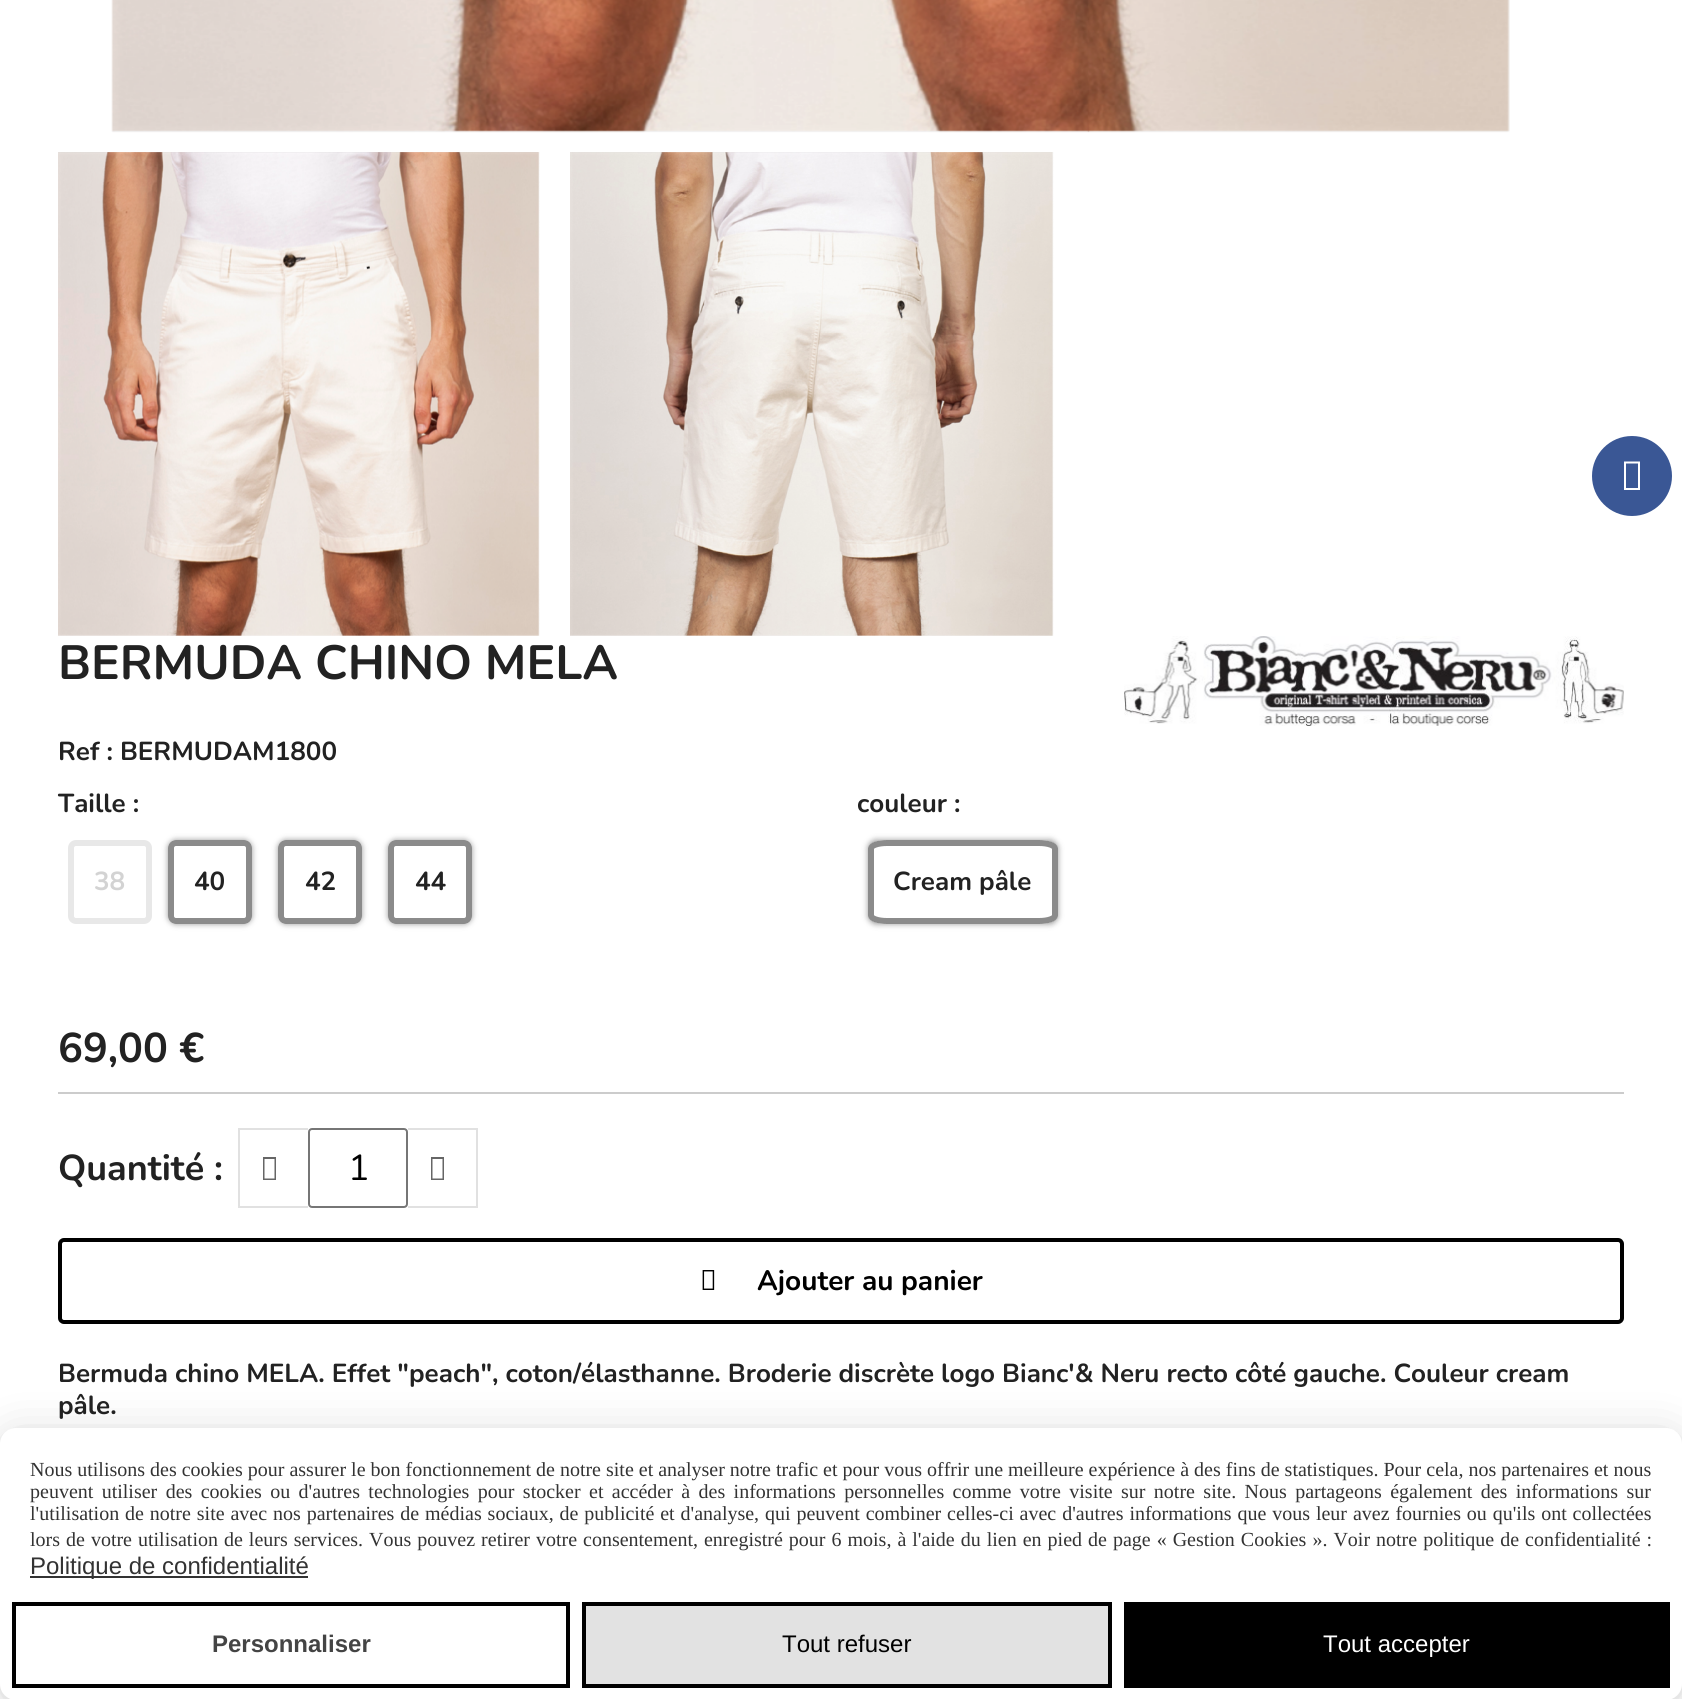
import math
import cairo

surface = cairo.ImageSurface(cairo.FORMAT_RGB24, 1682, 1699)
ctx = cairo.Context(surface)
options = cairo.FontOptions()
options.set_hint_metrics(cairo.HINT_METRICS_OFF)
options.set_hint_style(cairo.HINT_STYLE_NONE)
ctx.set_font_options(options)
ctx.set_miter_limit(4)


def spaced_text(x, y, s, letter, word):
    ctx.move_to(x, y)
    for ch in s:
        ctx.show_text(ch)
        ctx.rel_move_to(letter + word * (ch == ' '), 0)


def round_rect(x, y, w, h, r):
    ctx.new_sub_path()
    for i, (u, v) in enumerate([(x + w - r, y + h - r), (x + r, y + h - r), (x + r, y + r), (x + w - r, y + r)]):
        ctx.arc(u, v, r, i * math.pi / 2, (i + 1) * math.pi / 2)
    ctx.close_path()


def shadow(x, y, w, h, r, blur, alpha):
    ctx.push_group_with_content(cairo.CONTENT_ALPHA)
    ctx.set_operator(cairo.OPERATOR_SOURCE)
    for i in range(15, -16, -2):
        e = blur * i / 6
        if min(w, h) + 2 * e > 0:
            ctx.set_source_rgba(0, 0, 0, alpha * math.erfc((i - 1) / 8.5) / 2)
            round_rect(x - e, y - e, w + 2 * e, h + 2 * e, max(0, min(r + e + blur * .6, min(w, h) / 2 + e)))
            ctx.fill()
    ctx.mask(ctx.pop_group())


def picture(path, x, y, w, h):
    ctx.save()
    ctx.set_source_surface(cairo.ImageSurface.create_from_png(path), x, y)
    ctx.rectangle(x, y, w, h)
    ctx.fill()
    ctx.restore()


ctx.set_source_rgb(1, 1, 1)
ctx.paint()
ctx.set_source_rgb(0.227, 0.341, 0.584)
ctx.arc(1632, 476, 40, 0, 2 * math.pi)
ctx.fill()
ctx.set_source_rgb(1, 1, 1)
ctx.new_path()
ctx.move_to(1624, 490)
ctx.line_to(1624, 461.5)
ctx.line_to(1640, 461.5)
ctx.line_to(1640, 490)
ctx.close_path()
ctx.move_to(1626, 488)
ctx.line_to(1638, 488)
ctx.line_to(1638, 463.5)
ctx.line_to(1626, 463.5)
ctx.close_path()
ctx.fill()
picture("img1.png", 111, 0, 1399, 133)
picture("img2.png", 58, 152, 482, 484)
picture("img3.png", 570, 152, 484, 484)
ctx.select_font_face("Nunito", cairo.FONT_SLANT_NORMAL, cairo.FONT_WEIGHT_BOLD)
ctx.set_font_size(48)
ctx.set_source_rgb(0.133, 0.133, 0.133)
ctx.move_to(58, 679)
ctx.show_text("BERMUDA CHINO MELA")
picture("img4.png", 1124, 636, 500, 90)
ctx.set_font_size(26)
ctx.move_to(58, 760)
ctx.show_text("Ref : BERMUDAM1800")
ctx.move_to(58, 812)
ctx.show_text("Taille :")
round_rect(71, 843, 78, 78, 5)
ctx.set_source_rgb(0.91, 0.91, 0.91)
ctx.set_line_width(6)
ctx.stroke()
ctx.set_source_rgb(0.827, 0.827, 0.827)
ctx.move_to(94, 890)
ctx.show_text("38")
ctx.save()
ctx.set_fill_rule(cairo.FILL_RULE_EVEN_ODD)
ctx.new_path()
ctx.move_to(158, 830)
ctx.line_to(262, 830)
ctx.line_to(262, 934)
ctx.line_to(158, 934)
ctx.close_path()
ctx.move_to(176, 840)
ctx.line_to(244, 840)
ctx.curve_to(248.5, 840, 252, 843.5, 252, 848)
ctx.line_to(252, 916)
ctx.curve_to(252, 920.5, 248.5, 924, 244, 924)
ctx.line_to(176, 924)
ctx.curve_to(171.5, 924, 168, 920.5, 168, 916)
ctx.line_to(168, 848)
ctx.curve_to(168, 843.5, 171.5, 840, 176, 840)
ctx.close_path()
ctx.clip()
ctx.set_source_rgb(0, 0, 0)
shadow(168, 840, 84, 84, 8, 3, 0.4)
ctx.restore()
round_rect(171, 843, 78, 78, 5)
ctx.set_source_rgb(0.545, 0.545, 0.545)
ctx.stroke()
ctx.set_source_rgb(0.133, 0.133, 0.133)
ctx.move_to(194, 890)
ctx.show_text("40")
ctx.save()
ctx.set_fill_rule(cairo.FILL_RULE_EVEN_ODD)
ctx.new_path()
ctx.move_to(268, 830)
ctx.line_to(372, 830)
ctx.line_to(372, 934)
ctx.line_to(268, 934)
ctx.close_path()
ctx.move_to(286, 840)
ctx.line_to(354, 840)
ctx.curve_to(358.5, 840, 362, 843.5, 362, 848)
ctx.line_to(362, 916)
ctx.curve_to(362, 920.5, 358.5, 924, 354, 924)
ctx.line_to(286, 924)
ctx.curve_to(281.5, 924, 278, 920.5, 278, 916)
ctx.line_to(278, 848)
ctx.curve_to(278, 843.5, 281.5, 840, 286, 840)
ctx.close_path()
ctx.clip()
ctx.set_source_rgb(0, 0, 0)
shadow(278, 840, 84, 84, 8, 3, 0.4)
ctx.restore()
round_rect(281, 843, 78, 78, 5)
ctx.set_source_rgb(0.545, 0.545, 0.545)
ctx.stroke()
ctx.set_source_rgb(0.133, 0.133, 0.133)
ctx.move_to(305, 890)
ctx.show_text("42")
ctx.save()
ctx.set_fill_rule(cairo.FILL_RULE_EVEN_ODD)
ctx.new_path()
ctx.move_to(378, 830)
ctx.line_to(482, 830)
ctx.line_to(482, 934)
ctx.line_to(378, 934)
ctx.close_path()
ctx.move_to(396, 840)
ctx.line_to(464, 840)
ctx.curve_to(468.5, 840, 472, 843.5, 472, 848)
ctx.line_to(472, 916)
ctx.curve_to(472, 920.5, 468.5, 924, 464, 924)
ctx.line_to(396, 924)
ctx.curve_to(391.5, 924, 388, 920.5, 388, 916)
ctx.line_to(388, 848)
ctx.curve_to(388, 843.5, 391.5, 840, 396, 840)
ctx.close_path()
ctx.clip()
ctx.set_source_rgb(0, 0, 0)
shadow(388, 840, 84, 84, 8, 3, 0.4)
ctx.restore()
round_rect(391, 843, 78, 78, 5)
ctx.set_source_rgb(0.545, 0.545, 0.545)
ctx.stroke()
ctx.set_source_rgb(0.133, 0.133, 0.133)
ctx.move_to(415, 890)
ctx.show_text("44")
ctx.move_to(857, 812)
ctx.show_text("couleur :")
ctx.save()
ctx.set_fill_rule(cairo.FILL_RULE_EVEN_ODD)
ctx.new_path()
ctx.move_to(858, 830)
ctx.line_to(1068, 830)
ctx.line_to(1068, 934)
ctx.line_to(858, 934)
ctx.close_path()
ctx.move_to(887, 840)
ctx.line_to(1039, 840)
ctx.curve_to(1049.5, 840, 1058, 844, 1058, 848.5)
ctx.line_to(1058, 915.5)
ctx.curve_to(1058, 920, 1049.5, 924, 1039, 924)
ctx.line_to(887, 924)
ctx.curve_to(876.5, 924, 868, 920, 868, 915.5)
ctx.line_to(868, 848.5)
ctx.curve_to(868, 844, 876.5, 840, 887, 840)
ctx.close_path()
ctx.clip()
ctx.set_source_rgb(0, 0, 0)
shadow(868, 840, 190, 84, 8, 3, 0.4)
ctx.restore()
ctx.new_path()
ctx.move_to(887, 843)
ctx.line_to(1039, 843)
ctx.curve_to(1048, 843, 1055, 845.5, 1055, 848.5)
ctx.line_to(1055, 915.5)
ctx.curve_to(1055, 918.5, 1048, 921, 1039, 921)
ctx.line_to(887, 921)
ctx.curve_to(878, 921, 871, 918.5, 871, 915.5)
ctx.line_to(871, 848.5)
ctx.curve_to(871, 845.5, 878, 843, 887, 843)
ctx.close_path()
ctx.set_source_rgb(0.545, 0.545, 0.545)
ctx.stroke()
ctx.set_source_rgb(0.133, 0.133, 0.133)
ctx.move_to(893, 890)
ctx.show_text("Cream pâle")
ctx.set_source_rgb(0.8, 0.8, 0.8)
ctx.rectangle(58, 1092, 1566, 2)
ctx.fill()
ctx.set_font_size(41.5)
ctx.set_source_rgb(0.133, 0.133, 0.133)
ctx.move_to(58, 1062)
ctx.show_text("69,00 €")
ctx.set_font_size(36)
ctx.move_to(58, 1180)
ctx.show_text("Quantité :")
ctx.set_source_rgb(0.882, 0.882, 0.882)
ctx.rectangle(238, 1128, 70, 2)
ctx.fill()
ctx.rectangle(238, 1206, 70, 2)
ctx.fill()
ctx.rectangle(238, 1128, 2, 80)
ctx.fill()
ctx.set_source_rgb(0.4, 0.4, 0.4)
ctx.new_path()
ctx.move_to(263, 1180)
ctx.line_to(263, 1157)
ctx.line_to(276, 1157)
ctx.line_to(276, 1180)
ctx.close_path()
ctx.move_to(264.5, 1178.5)
ctx.line_to(274.5, 1178.5)
ctx.line_to(274.5, 1159)
ctx.line_to(264.5, 1159)
ctx.close_path()
ctx.fill()
round_rect(309, 1129, 98, 78, 3)
ctx.set_source_rgb(0.463, 0.463, 0.463)
ctx.set_line_width(2)
ctx.stroke()
ctx.select_font_face("Nunito")
ctx.set_source_rgb(0, 0, 0)
ctx.move_to(348, 1180)
ctx.show_text("1")
ctx.set_source_rgb(0.882, 0.882, 0.882)
ctx.rectangle(408, 1128, 70, 2)
ctx.fill()
ctx.rectangle(476, 1128, 2, 80)
ctx.fill()
ctx.rectangle(408, 1206, 70, 2)
ctx.fill()
ctx.set_source_rgb(0.4, 0.4, 0.4)
ctx.new_path()
ctx.move_to(431, 1180)
ctx.line_to(431, 1157)
ctx.line_to(444, 1157)
ctx.line_to(444, 1180)
ctx.close_path()
ctx.move_to(432.5, 1178.5)
ctx.line_to(442.5, 1178.5)
ctx.line_to(442.5, 1159)
ctx.line_to(432.5, 1159)
ctx.close_path()
ctx.fill()
round_rect(60, 1240, 1562, 82, 4)
ctx.set_source_rgb(0, 0, 0)
ctx.set_line_width(4)
ctx.stroke()
picture("img5.png", 702, 1270, 13, 20)
ctx.select_font_face("Nunito", cairo.FONT_SLANT_NORMAL, cairo.FONT_WEIGHT_BOLD)
ctx.set_font_size(28)
ctx.move_to(757, 1290)
ctx.show_text("Ajouter au panier")
ctx.set_font_size(26)
ctx.set_source_rgb(0.133, 0.133, 0.133)
ctx.move_to(58, 1382)
ctx.show_text("Bermuda chino MELA. Effet \"peach\", coton/élasthanne. Broderie discrète logo Bianc'& Neru recto côté gauche. Couleur cream")
ctx.move_to(58, 1414)
ctx.show_text("pâle.")
ctx.set_source_rgb(0, 0, 0)
shadow(0, 1432, 1682, 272, 16, 6, 0.05)
shadow(0, 1436, 1682, 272, 16, 24, 0.15)
ctx.set_source_rgb(1, 1, 1)
round_rect(0, 1428, 1682, 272, 16)
ctx.fill()
ctx.select_font_face("Liberation Serif")
ctx.set_font_size(20)
ctx.set_source_rgb(0.2, 0.2, 0.2)
ctx.move_to(30, 1476)
ctx.show_text("Nous utilisons des cookies pour assurer le bon fonctionnement de notre site et analyser notre trafic et pour vous offrir une meilleure expérience à des fins de statistiques. Pour cela, nos partenaires et nous")
spaced_text(30, 1498, "peuvent utiliser des cookies ou d'autres technologies pour stocker et accéder à des informations personnelles comme votre visite sur notre site. Nous partageons également des informations sur", 0, 3.4)
spaced_text(30, 1520, "l'utilisation de notre site avec nos partenaires de médias sociaux, de publicité et d'analyse, qui peuvent combiner celles-ci avec d'autres informations que vous leur avez fournies ou qu'ils ont collectées", 0, 0.9)
spaced_text(30, 1546, "lors de votre utilisation de leurs services. Vous pouvez retirer votre consentement, enregistré pour 6 mois, à l'aide du lien en pied de page « Gestion Cookies ». Voir notre politique de confidentialité :", 0, 1)
ctx.rectangle(30, 1576, 278, 2)
ctx.fill()
ctx.select_font_face("Liberation Sans")
ctx.set_font_size(24)
ctx.move_to(30, 1574)
ctx.show_text("Politique de confidentialité")
ctx.rectangle(14, 1604, 554, 82)
ctx.set_source_rgb(0, 0, 0)
ctx.stroke()
ctx.select_font_face("Liberation Sans", cairo.FONT_SLANT_NORMAL, cairo.FONT_WEIGHT_BOLD)
ctx.set_source_rgb(0.267, 0.267, 0.267)
ctx.move_to(212, 1652)
ctx.show_text("Personnaliser")
ctx.set_source_rgb(0.886, 0.886, 0.886)
ctx.rectangle(584, 1604, 526, 82)
ctx.fill_preserve()
ctx.set_source_rgb(0, 0, 0)
ctx.stroke()
ctx.select_font_face("Liberation Sans")
ctx.move_to(782, 1652)
ctx.show_text("Tout refuser")
ctx.rectangle(1124, 1602, 546, 86)
ctx.fill()
ctx.set_source_rgb(1, 1, 1)
ctx.move_to(1323, 1652)
ctx.show_text("Tout accepter")
surface.write_to_png("page.png")
